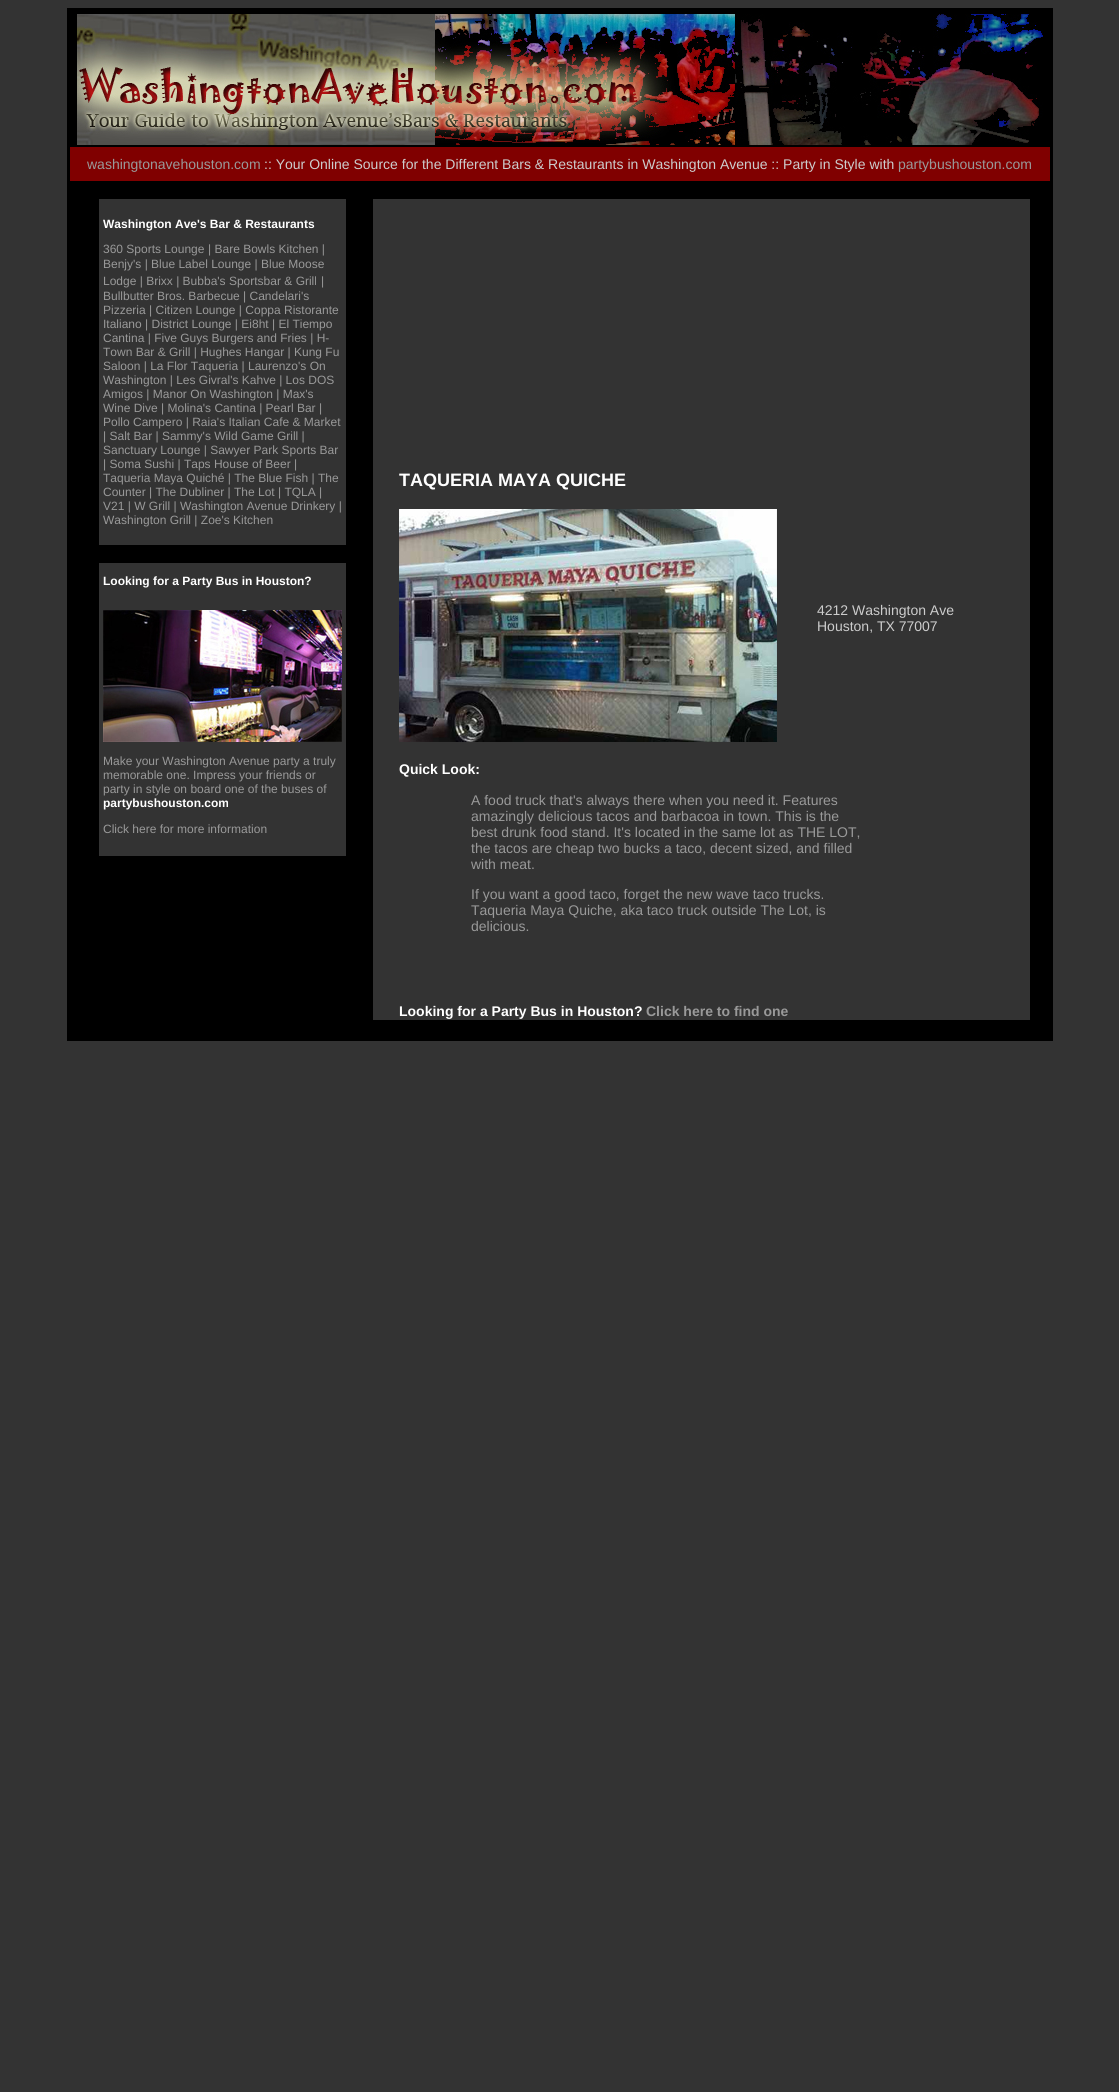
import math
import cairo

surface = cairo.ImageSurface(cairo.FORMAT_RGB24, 1119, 2092)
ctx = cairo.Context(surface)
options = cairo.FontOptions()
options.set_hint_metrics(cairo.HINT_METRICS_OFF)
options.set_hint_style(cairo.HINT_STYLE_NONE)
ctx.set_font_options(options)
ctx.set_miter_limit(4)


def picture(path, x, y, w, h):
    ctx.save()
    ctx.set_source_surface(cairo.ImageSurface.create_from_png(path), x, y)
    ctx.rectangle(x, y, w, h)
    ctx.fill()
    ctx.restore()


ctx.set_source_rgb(0.2, 0.2, 0.2)
ctx.paint()
ctx.set_source_rgb(0, 0, 0)
ctx.rectangle(67, 8, 986, 1033)
ctx.fill()
picture("img1.png", 77, 14, 966, 131)
ctx.set_source_rgb(0.502, 0, 0)
ctx.rectangle(70, 147, 980, 34)
ctx.fill()
ctx.select_font_face("Liberation Sans")
ctx.set_font_size(14)
ctx.set_source_rgb(0.6, 0.6, 0.6)
ctx.move_to(87, 169)
ctx.show_text("washingtonavehouston.com")
ctx.set_source_rgb(0.8, 0.8, 0.8)
ctx.move_to(264, 169)
ctx.show_text(":: Your Online Source for the Different Bars & Restaurants in Washington Avenue :: Party in Style with")
ctx.set_source_rgb(0.6, 0.6, 0.6)
ctx.move_to(898, 169)
ctx.show_text("partybushouston.com")
ctx.set_source_rgb(0.2, 0.2, 0.2)
ctx.rectangle(99, 199, 247, 657)
ctx.fill()
ctx.select_font_face("Liberation Sans", cairo.FONT_SLANT_NORMAL, cairo.FONT_WEIGHT_BOLD)
ctx.set_font_size(12)
ctx.set_source_rgb(1, 1, 1)
ctx.move_to(103, 228)
ctx.show_text("Washington Ave's Bar & Restaurants")
ctx.select_font_face("Liberation Sans")
ctx.set_source_rgb(0.6, 0.6, 0.6)
ctx.move_to(103, 253)
ctx.show_text("360 Sports Lounge")
ctx.move_to(208, 253)
ctx.show_text("| Bare Bowls Kitchen |")
ctx.move_to(103, 268)
ctx.show_text("Benjy's | Blue Label Lounge | Blue Moose")
ctx.move_to(103, 285)
ctx.show_text("Lodge | Brixx | Bubba's Sportsbar & Grill")
ctx.move_to(321, 285)
ctx.show_text("|")
ctx.move_to(103, 300)
ctx.show_text("Bullbutter Bros. Barbecue | Candelari's")
ctx.move_to(103, 314)
ctx.show_text("Pizzeria | Citizen Lounge | Coppa Ristorante")
ctx.move_to(103, 328)
ctx.show_text("Italiano | District Lounge | Ei8ht | El Tiempo")
ctx.move_to(103, 342)
ctx.show_text("Cantina | Five Guys Burgers and Fries | H-")
ctx.move_to(103, 356)
ctx.show_text("Town Bar & Grill | Hughes Hangar | Kung Fu")
ctx.move_to(103, 370)
ctx.show_text("Saloon | La Flor Taqueria | Laurenzo's On")
ctx.move_to(103, 384)
ctx.show_text("Washington | Les Givral's Kahve | Los DOS")
ctx.move_to(103, 398)
ctx.show_text("Amigos | Manor On Washington | Max's")
ctx.move_to(103, 412)
ctx.show_text("Wine Dive | Molina's Cantina | Pearl Bar |")
ctx.move_to(103, 426)
ctx.show_text("Pollo Campero | Raia's Italian Cafe & Market")
ctx.move_to(103, 440)
ctx.show_text("| Salt Bar | Sammy's Wild Game Grill |")
ctx.move_to(103, 454)
ctx.show_text("Sanctuary Lounge | Sawyer Park Sports Bar")
ctx.move_to(103, 468)
ctx.show_text("| Soma Sushi | Taps House of Beer |")
ctx.move_to(103, 482)
ctx.show_text("Taqueria Maya Quiché | The Blue Fish | The")
ctx.move_to(103, 496)
ctx.show_text("Counter | The Dubliner | The Lot | TQLA |")
ctx.move_to(103, 510)
ctx.show_text("V21 | W Grill | Washington Avenue Drinkery |")
ctx.move_to(103, 524)
ctx.show_text("Washington Grill | Zoe's Kitchen")
ctx.set_source_rgb(0, 0, 0)
ctx.rectangle(99, 545, 247, 18)
ctx.fill()
ctx.select_font_face("Liberation Sans", cairo.FONT_SLANT_NORMAL, cairo.FONT_WEIGHT_BOLD)
ctx.set_source_rgb(1, 1, 1)
ctx.move_to(103, 585)
ctx.show_text("Looking for a Party Bus in Houston?")
picture("img2.png", 103, 610, 239, 132)
ctx.select_font_face("Liberation Sans")
ctx.set_source_rgb(0.6, 0.6, 0.6)
ctx.move_to(103, 765)
ctx.show_text("Make your Washington Avenue party a truly")
ctx.move_to(103, 779)
ctx.show_text("memorable one. Impress your friends or")
ctx.move_to(103, 793)
ctx.show_text("party in style on board one of the buses of")
ctx.select_font_face("Liberation Sans", cairo.FONT_SLANT_NORMAL, cairo.FONT_WEIGHT_BOLD)
ctx.set_source_rgb(1, 1, 1)
ctx.move_to(103, 807)
ctx.show_text("partybushouston.com")
ctx.select_font_face("Liberation Sans")
ctx.set_source_rgb(0.6, 0.6, 0.6)
ctx.move_to(103, 833)
ctx.show_text("Click here for more information")
ctx.set_source_rgb(0.2, 0.2, 0.2)
ctx.rectangle(373, 199, 657, 821)
ctx.fill()
ctx.select_font_face("Liberation Sans", cairo.FONT_SLANT_NORMAL, cairo.FONT_WEIGHT_BOLD)
ctx.set_font_size(18)
ctx.set_source_rgb(1, 1, 1)
ctx.move_to(399, 486)
ctx.show_text("TAQUERIA MAYA QUICHE")
picture("img3.png", 399, 509, 378, 233)
ctx.select_font_face("Liberation Sans")
ctx.set_font_size(14)
ctx.set_source_rgb(0.8, 0.8, 0.8)
ctx.move_to(817, 615)
ctx.show_text("4212 Washington Ave")
ctx.move_to(817, 631)
ctx.show_text("Houston, TX 77007")
ctx.select_font_face("Liberation Sans", cairo.FONT_SLANT_NORMAL, cairo.FONT_WEIGHT_BOLD)
ctx.set_source_rgb(1, 1, 1)
ctx.move_to(399, 774)
ctx.show_text("Quick Look:")
ctx.select_font_face("Liberation Sans")
ctx.set_source_rgb(0.6, 0.6, 0.6)
ctx.move_to(471, 805)
ctx.show_text("A food truck that's always there when you need it. Features")
ctx.move_to(471, 821)
ctx.show_text("amazingly delicious tacos and barbacoa in town. This is the")
ctx.move_to(471, 837)
ctx.show_text("best drunk food stand. It's located in the same lot as THE LOT,")
ctx.move_to(471, 853)
ctx.show_text("the tacos are cheap two bucks a taco, decent sized, and filled")
ctx.move_to(471, 869)
ctx.show_text("with meat.")
ctx.move_to(471, 899)
ctx.show_text("If you want a good taco, forget the new wave taco trucks.")
ctx.move_to(471, 915)
ctx.show_text("Taqueria Maya Quiche, aka taco truck outside The Lot, is")
ctx.move_to(471, 931)
ctx.show_text("delicious.")
ctx.select_font_face("Liberation Sans", cairo.FONT_SLANT_NORMAL, cairo.FONT_WEIGHT_BOLD)
ctx.set_source_rgb(1, 1, 1)
ctx.move_to(399, 1016)
ctx.show_text("Looking for a Party Bus in Houston?")
ctx.set_source_rgb(0.6, 0.6, 0.6)
ctx.move_to(646, 1016)
ctx.show_text("Click here to find one")
surface.write_to_png("page.png")
